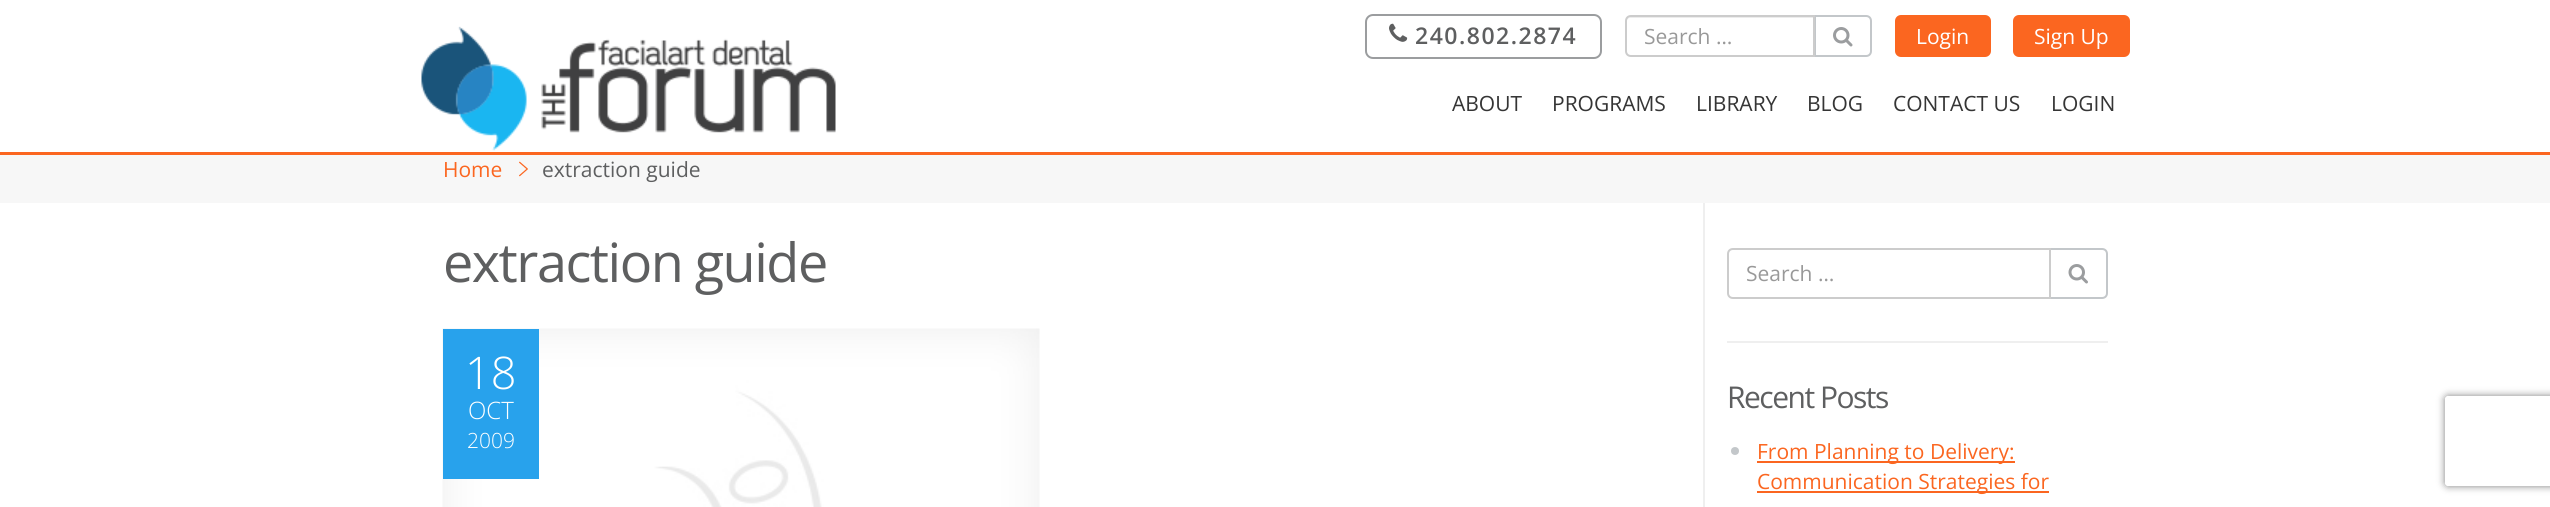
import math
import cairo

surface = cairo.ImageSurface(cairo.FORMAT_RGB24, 2550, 507)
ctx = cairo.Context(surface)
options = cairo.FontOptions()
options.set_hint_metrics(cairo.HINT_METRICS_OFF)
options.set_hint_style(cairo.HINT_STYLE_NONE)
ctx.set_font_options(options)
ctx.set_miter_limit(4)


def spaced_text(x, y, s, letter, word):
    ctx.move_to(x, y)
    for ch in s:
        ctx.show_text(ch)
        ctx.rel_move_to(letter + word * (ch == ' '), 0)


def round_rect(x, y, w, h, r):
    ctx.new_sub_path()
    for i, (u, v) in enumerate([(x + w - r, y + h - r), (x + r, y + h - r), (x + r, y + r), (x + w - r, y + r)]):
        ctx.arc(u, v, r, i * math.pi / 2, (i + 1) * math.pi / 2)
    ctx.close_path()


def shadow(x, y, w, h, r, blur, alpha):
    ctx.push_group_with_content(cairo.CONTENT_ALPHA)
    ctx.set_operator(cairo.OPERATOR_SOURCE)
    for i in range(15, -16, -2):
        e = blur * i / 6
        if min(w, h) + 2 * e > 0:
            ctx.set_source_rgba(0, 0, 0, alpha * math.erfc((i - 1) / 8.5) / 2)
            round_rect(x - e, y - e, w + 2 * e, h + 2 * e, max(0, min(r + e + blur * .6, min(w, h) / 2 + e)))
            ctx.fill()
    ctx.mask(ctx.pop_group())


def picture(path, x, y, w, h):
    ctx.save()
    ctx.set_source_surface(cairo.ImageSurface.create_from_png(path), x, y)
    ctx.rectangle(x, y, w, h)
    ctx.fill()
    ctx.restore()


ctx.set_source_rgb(1, 1, 1)
ctx.paint()
ctx.set_source_rgb(0.984, 0.4, 0.125)
ctx.rectangle(0, 152, 2550, 3)
ctx.fill()
picture("img1.png", 421, 26, 415, 125)
round_rect(1366, 15, 235, 43, 7)
ctx.set_source_rgb(0.608, 0.616, 0.624)
ctx.stroke()
picture("img2.png", 1389, 23, 19, 19)
ctx.select_font_face("Open Sans SemiBold")
ctx.set_font_size(23)
ctx.set_source_rgb(0.369, 0.373, 0.376)
spaced_text(1415, 44, "240.802.2874", 1.5, 0)
ctx.new_path()
ctx.move_to(1815, 16)
ctx.line_to(1866, 16)
ctx.curve_to(1869, 16, 1871, 18, 1871, 21)
ctx.line_to(1871, 51)
ctx.curve_to(1871, 54, 1869, 56, 1866, 56)
ctx.line_to(1815, 56)
ctx.close_path()
ctx.set_source_rgb(0.765, 0.78, 0.792)
ctx.stroke()
ctx.set_source_rgb(1, 1, 1)
ctx.new_path()
ctx.move_to(1631, 15)
ctx.line_to(1815, 15)
ctx.line_to(1815, 57)
ctx.line_to(1631, 57)
ctx.curve_to(1627.5, 57, 1625, 54.5, 1625, 51)
ctx.line_to(1625, 21)
ctx.curve_to(1625, 17.5, 1627.5, 15, 1631, 15)
ctx.close_path()
ctx.fill()
ctx.set_source_rgb(0.925, 0.925, 0.925)
ctx.new_path()
ctx.move_to(1630, 18)
ctx.line_to(1814, 18)
ctx.line_to(1814, 17)
ctx.line_to(1631, 17)
ctx.curve_to(1628, 17, 1626, 19, 1626, 22)
ctx.curve_to(1626, 20, 1628, 18, 1630, 18)
ctx.close_path()
ctx.fill()
ctx.new_path()
ctx.move_to(1631, 16)
ctx.line_to(1814, 16)
ctx.line_to(1814, 56)
ctx.line_to(1631, 56)
ctx.curve_to(1628, 56, 1626, 54, 1626, 51)
ctx.line_to(1626, 21)
ctx.curve_to(1626, 18, 1628, 16, 1631, 16)
ctx.close_path()
ctx.set_source_rgb(0.8, 0.8, 0.8)
ctx.stroke()
ctx.select_font_face("Open Sans")
ctx.set_font_size(21)
ctx.set_source_rgb(0.6, 0.6, 0.6)
ctx.move_to(1644, 44)
ctx.show_text("Search …")
picture("img3.png", 1833, 27, 20, 20)
ctx.set_source_rgb(0.984, 0.4, 0.125)
round_rect(1896, 16, 94, 40, 5)
ctx.fill_preserve()
ctx.stroke()
ctx.set_source_rgb(1, 1, 1)
ctx.move_to(1916, 44)
ctx.show_text("Login")
ctx.set_source_rgb(0.984, 0.4, 0.125)
round_rect(2014, 16, 115, 40, 5)
ctx.fill_preserve()
ctx.stroke()
ctx.set_source_rgb(1, 1, 1)
ctx.move_to(2034, 44)
ctx.show_text("Sign Up")
ctx.set_source_rgb(0.208, 0.208, 0.208)
ctx.move_to(1452, 111)
ctx.show_text("ABOUT")
ctx.move_to(1552, 111)
ctx.show_text("PROGRAMS")
ctx.move_to(1696, 111)
ctx.show_text("LIBRARY")
ctx.move_to(1807, 111)
ctx.show_text("BLOG")
ctx.move_to(1893, 111)
ctx.show_text("CONTACT US")
ctx.move_to(2051, 111)
ctx.show_text("LOGIN")
ctx.set_source_rgb(0.965, 0.965, 0.965)
ctx.rectangle(0, 155, 2550, 48)
ctx.fill()
ctx.set_source_rgb(0.984, 0.4, 0.125)
ctx.move_to(443, 177)
ctx.show_text("Home")
picture("img4.png", 519, 161, 9, 16)
ctx.set_source_rgb(0.369, 0.373, 0.376)
ctx.move_to(542, 177)
ctx.show_text("extraction guide")
ctx.set_font_size(54)
spaced_text(443, 282, "extraction guide", -1.5, 0)
picture("img5.png", 442, 328, 598, 179)
ctx.set_source_rgb(0.157, 0.635, 0.922)
ctx.rectangle(443, 329, 96, 150)
ctx.fill()
ctx.select_font_face("Open Sans Light")
ctx.set_font_size(45)
ctx.set_source_rgb(1, 1, 1)
ctx.move_to(465, 389)
ctx.show_text("18")
ctx.set_font_size(24)
ctx.move_to(468, 419)
ctx.show_text("OCT")
ctx.set_font_size(21)
ctx.move_to(467, 448)
ctx.show_text("2009")
ctx.set_source_rgb(0.937, 0.937, 0.937)
ctx.rectangle(1703, 203, 2, 304)
ctx.fill()
ctx.new_path()
ctx.move_to(2050, 249)
ctx.line_to(2102, 249)
ctx.curve_to(2105, 249, 2107, 251, 2107, 254)
ctx.line_to(2107, 293)
ctx.curve_to(2107, 296, 2105, 298, 2102, 298)
ctx.line_to(2050, 298)
ctx.close_path()
ctx.set_source_rgb(0.765, 0.78, 0.792)
ctx.stroke()
ctx.set_source_rgb(1, 1, 1)
ctx.new_path()
ctx.move_to(1733, 249)
ctx.line_to(2050, 249)
ctx.line_to(2050, 298)
ctx.line_to(1733, 298)
ctx.curve_to(1730, 298, 1728, 296, 1728, 293)
ctx.line_to(1728, 254)
ctx.curve_to(1728, 251, 1730, 249, 1733, 249)
ctx.close_path()
ctx.fill_preserve()
ctx.set_source_rgb(0.8, 0.8, 0.8)
ctx.stroke()
ctx.select_font_face("Open Sans")
ctx.set_source_rgb(0.6, 0.6, 0.6)
ctx.move_to(1746, 281)
ctx.show_text("Search …")
picture("img6.png", 2068, 264, 20, 20)
ctx.set_source_rgb(0.937, 0.937, 0.937)
ctx.rectangle(1727, 341, 381, 2)
ctx.fill()
ctx.set_font_size(30)
ctx.set_source_rgb(0.369, 0.373, 0.376)
spaced_text(1727, 408, "Recent Posts", -1.5, 0)
ctx.set_source_rgb(0.765, 0.78, 0.792)
ctx.new_path()
ctx.arc(1735, 451, 4, 0, 2 * math.pi)
ctx.fill()
ctx.set_source_rgb(0.984, 0.4, 0.125)
ctx.rectangle(1757, 461, 258, 2)
ctx.fill()
ctx.set_font_size(21)
ctx.move_to(1757, 459)
ctx.show_text("From Planning to Delivery:")
ctx.rectangle(1757, 491, 292, 2)
ctx.fill()
ctx.move_to(1757, 489)
ctx.show_text("Communication Strategies for")
ctx.save()
ctx.set_fill_rule(cairo.FILL_RULE_EVEN_ODD)
ctx.new_path()
ctx.move_to(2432, 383)
ctx.line_to(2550, 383)
ctx.line_to(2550, 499)
ctx.line_to(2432, 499)
ctx.close_path()
ctx.move_to(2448, 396)
ctx.line_to(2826, 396)
ctx.curve_to(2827.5, 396, 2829, 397.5, 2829, 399)
ctx.line_to(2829, 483)
ctx.curve_to(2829, 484.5, 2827.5, 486, 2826, 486)
ctx.line_to(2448, 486)
ctx.curve_to(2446.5, 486, 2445, 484.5, 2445, 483)
ctx.line_to(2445, 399)
ctx.curve_to(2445, 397.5, 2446.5, 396, 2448, 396)
ctx.close_path()
ctx.clip()
ctx.set_source_rgb(0.502, 0.502, 0.502)
shadow(2445, 396, 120, 90, 3, 4, 1)
ctx.restore()
surface.write_to_png("page.png")
